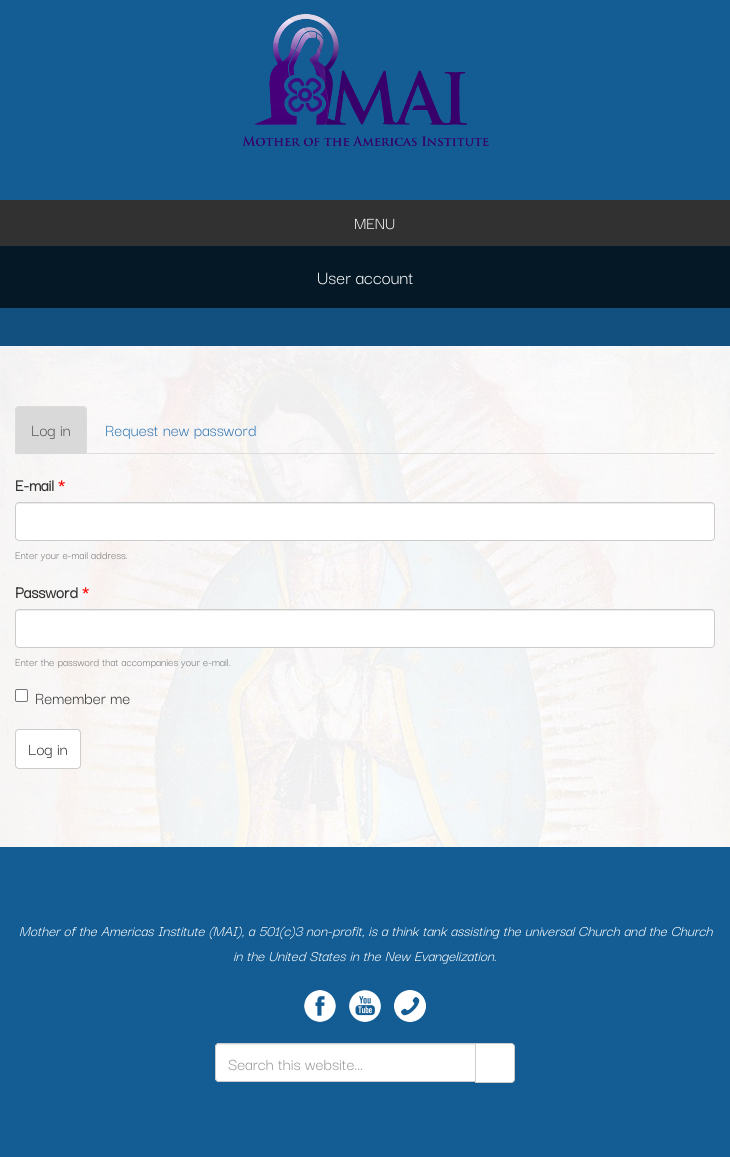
import math
import cairo

surface = cairo.ImageSurface(cairo.FORMAT_RGB24, 730, 1157)
ctx = cairo.Context(surface)
options = cairo.FontOptions()
options.set_hint_metrics(cairo.HINT_METRICS_OFF)
options.set_hint_style(cairo.HINT_STYLE_NONE)
ctx.set_font_options(options)
ctx.set_miter_limit(4)


def round_rect(x, y, w, h, r):
    ctx.new_sub_path()
    for i, (u, v) in enumerate([(x + w - r, y + h - r), (x + r, y + h - r), (x + r, y + r), (x + w - r, y + r)]):
        ctx.arc(u, v, r, i * math.pi / 2, (i + 1) * math.pi / 2)
    ctx.close_path()


def picture(path, x, y, w, h):
    ctx.save()
    ctx.set_source_surface(cairo.ImageSurface.create_from_png(path), x, y)
    ctx.rectangle(x, y, w, h)
    ctx.fill()
    ctx.restore()


ctx.set_source_rgb(0.071, 0.314, 0.502)
ctx.paint()
ctx.set_source_rgb(0.078, 0.365, 0.58)
ctx.rectangle(0, 0, 730, 200)
ctx.fill()
picture("img1.png", 242, 13, 247, 134)
ctx.set_source_rgb(0.192, 0.192, 0.192)
ctx.rectangle(0, 200, 730, 46)
ctx.fill()
ctx.select_font_face("Darker Grotesque Light")
ctx.set_font_size(18)
ctx.set_source_rgb(1, 1, 1)
ctx.move_to(354, 229)
ctx.show_text("MENU")
ctx.set_source_rgb(0.02, 0.094, 0.149)
ctx.rectangle(0, 246, 730, 62)
ctx.fill()
ctx.set_font_size(20)
ctx.set_source_rgb(1, 1, 1)
ctx.move_to(317, 284)
ctx.show_text("User account")
picture("img2.png", 0, 346, 730, 501)
ctx.set_source_rgb(0.867, 0.867, 0.867)
ctx.rectangle(87, 453, 628, 1)
ctx.fill()
ctx.set_source_rgb(0.851, 0.851, 0.851)
ctx.new_path()
ctx.move_to(19, 406)
ctx.line_to(83, 406)
ctx.curve_to(85, 406, 87, 408, 87, 410)
ctx.line_to(87, 454)
ctx.line_to(15, 454)
ctx.line_to(15, 410)
ctx.curve_to(15, 408, 17, 406, 19, 406)
ctx.close_path()
ctx.fill()
ctx.set_source_rgb(0.867, 0.867, 0.867)
ctx.new_path()
ctx.move_to(19, 406)
ctx.line_to(16, 407)
ctx.line_to(17, 408)
ctx.line_to(19, 407)
ctx.line_to(30, 407)
ctx.curve_to(36, 407, 83, 406, 85, 408)
ctx.line_to(86, 407)
ctx.line_to(83, 406)
ctx.close_path()
ctx.fill()
ctx.new_path()
ctx.move_to(87, 454)
ctx.line_to(87, 410)
ctx.curve_to(87, 409, 86, 408, 86, 407)
ctx.line_to(85, 408)
ctx.curve_to(87, 410, 86, 448, 86, 453)
ctx.close_path()
ctx.fill()
ctx.new_path()
ctx.move_to(15, 454)
ctx.line_to(16, 453)
ctx.curve_to(16, 448, 15, 410, 17, 408)
ctx.line_to(16, 407)
ctx.line_to(15, 410)
ctx.close_path()
ctx.fill()
ctx.set_font_size(18)
ctx.set_source_rgb(0.333, 0.333, 0.333)
ctx.move_to(31, 436)
ctx.show_text("Log in")
ctx.set_source_rgb(0.2, 0.478, 0.718)
ctx.move_to(105, 436)
ctx.show_text("Request new password")
ctx.select_font_face("Darker Grotesque", cairo.FONT_SLANT_NORMAL, cairo.FONT_WEIGHT_BOLD)
ctx.set_source_rgb(0.2, 0.2, 0.2)
ctx.move_to(15, 491)
ctx.show_text("E-mail")
ctx.set_source_rgb(1, 0, 0)
ctx.move_to(58, 491)
ctx.show_text("*")
ctx.set_source_rgb(1, 1, 1)
round_rect(15, 502, 700, 39, 4)
ctx.fill()
ctx.set_source_rgb(0.925, 0.925, 0.925)
ctx.new_path()
ctx.move_to(19, 504)
ctx.line_to(711, 504)
ctx.curve_to(713, 504, 714, 505, 714, 507)
ctx.curve_to(714, 505, 713, 503, 711, 503)
ctx.line_to(19, 503)
ctx.curve_to(17, 503, 16, 505, 16, 507)
ctx.curve_to(16, 505, 17, 504, 19, 504)
ctx.close_path()
ctx.fill()
round_rect(15.5, 502.5, 699, 38, 3.5)
ctx.set_source_rgb(0.8, 0.8, 0.8)
ctx.set_line_width(1)
ctx.stroke()
ctx.select_font_face("Darker Grotesque Light")
ctx.set_font_size(12)
ctx.set_source_rgb(0.467, 0.467, 0.467)
ctx.move_to(15, 559)
ctx.show_text("Enter your e-mail address.")
ctx.select_font_face("Darker Grotesque", cairo.FONT_SLANT_NORMAL, cairo.FONT_WEIGHT_BOLD)
ctx.set_font_size(18)
ctx.set_source_rgb(0.2, 0.2, 0.2)
ctx.move_to(15, 598)
ctx.show_text("Password")
ctx.set_source_rgb(1, 0, 0)
ctx.move_to(82, 598)
ctx.show_text("*")
ctx.set_source_rgb(1, 1, 1)
round_rect(15, 609, 700, 39, 4)
ctx.fill()
ctx.set_source_rgb(0.925, 0.925, 0.925)
ctx.new_path()
ctx.move_to(19, 611)
ctx.line_to(711, 611)
ctx.curve_to(713, 611, 714, 612, 714, 614)
ctx.curve_to(714, 612, 713, 610, 711, 610)
ctx.line_to(19, 610)
ctx.curve_to(17, 610, 16, 612, 16, 614)
ctx.curve_to(16, 612, 17, 611, 19, 611)
ctx.close_path()
ctx.fill()
round_rect(15.5, 609.5, 699, 38, 3.5)
ctx.set_source_rgb(0.8, 0.8, 0.8)
ctx.stroke()
ctx.select_font_face("Darker Grotesque Light")
ctx.set_font_size(12)
ctx.set_source_rgb(0.467, 0.467, 0.467)
ctx.move_to(15, 666)
ctx.show_text("Enter the password that accompanies your e-mail.")
ctx.set_source_rgb(1, 1, 1)
round_rect(15.5, 689.5, 12, 12, 1.5)
ctx.fill_preserve()
ctx.set_source_rgb(0.463, 0.463, 0.463)
ctx.stroke()
ctx.set_font_size(18)
ctx.set_source_rgb(0.2, 0.2, 0.2)
ctx.move_to(35, 704)
ctx.show_text("Remember me")
ctx.set_source_rgb(1, 1, 1)
round_rect(15.5, 729.5, 65, 39, 3.5)
ctx.fill_preserve()
ctx.set_source_rgb(0.8, 0.8, 0.8)
ctx.stroke()
ctx.set_source_rgb(0.2, 0.2, 0.2)
ctx.move_to(28, 755)
ctx.show_text("Log in")
ctx.set_source_rgb(0.078, 0.365, 0.58)
ctx.rectangle(0, 847, 730, 310)
ctx.fill()
ctx.select_font_face("Darker Grotesque Light", cairo.FONT_SLANT_ITALIC)
ctx.set_font_size(15.85)
ctx.set_source_rgb(1, 1, 1)
ctx.move_to(19, 936)
ctx.show_text("Mother of the Americas Institute (MAI), a 501(c)3 non-profit, is a think tank assisting the universal Church and the Church")
ctx.move_to(233, 961)
ctx.show_text("in the United States in the New Evangelization.")
picture("img3.png", 304, 990, 32, 32)
picture("img4.png", 349, 990, 32, 32)
picture("img5.png", 394, 990, 32, 32)
ctx.new_path()
ctx.move_to(219, 1043)
ctx.line_to(476, 1043)
ctx.line_to(476, 1082)
ctx.line_to(219, 1082)
ctx.curve_to(217, 1082, 215, 1080, 215, 1078)
ctx.line_to(215, 1047)
ctx.curve_to(215, 1045, 217, 1043, 219, 1043)
ctx.close_path()
ctx.fill()
ctx.set_source_rgb(0.925, 0.925, 0.925)
ctx.new_path()
ctx.move_to(219, 1045)
ctx.line_to(475, 1045)
ctx.line_to(475, 1044)
ctx.line_to(219, 1044)
ctx.curve_to(217, 1044, 216, 1045, 216, 1047)
ctx.line_to(216, 1048)
ctx.curve_to(216, 1046, 217, 1045, 219, 1045)
ctx.close_path()
ctx.fill()
ctx.new_path()
ctx.move_to(219, 1043.5)
ctx.line_to(475.5, 1043.5)
ctx.line_to(475.5, 1081.5)
ctx.line_to(219, 1081.5)
ctx.curve_to(217, 1081.5, 215.5, 1080, 215.5, 1078)
ctx.line_to(215.5, 1047)
ctx.curve_to(215.5, 1045, 217, 1043.5, 219, 1043.5)
ctx.close_path()
ctx.set_source_rgb(0.8, 0.8, 0.8)
ctx.stroke()
ctx.select_font_face("Darker Grotesque Light")
ctx.set_font_size(18)
ctx.set_source_rgb(0.6, 0.6, 0.6)
ctx.move_to(228, 1070)
ctx.show_text("Search this website...")
ctx.set_source_rgb(1, 1, 1)
ctx.new_path()
ctx.move_to(475.5, 1043.5)
ctx.line_to(511, 1043.5)
ctx.curve_to(513, 1043.5, 514.5, 1045, 514.5, 1047)
ctx.line_to(514.5, 1079)
ctx.curve_to(514.5, 1081, 513, 1082.5, 511, 1082.5)
ctx.line_to(475.5, 1082.5)
ctx.close_path()
ctx.fill_preserve()
ctx.set_source_rgb(0.8, 0.8, 0.8)
ctx.stroke()
surface.write_to_png("page.png")
